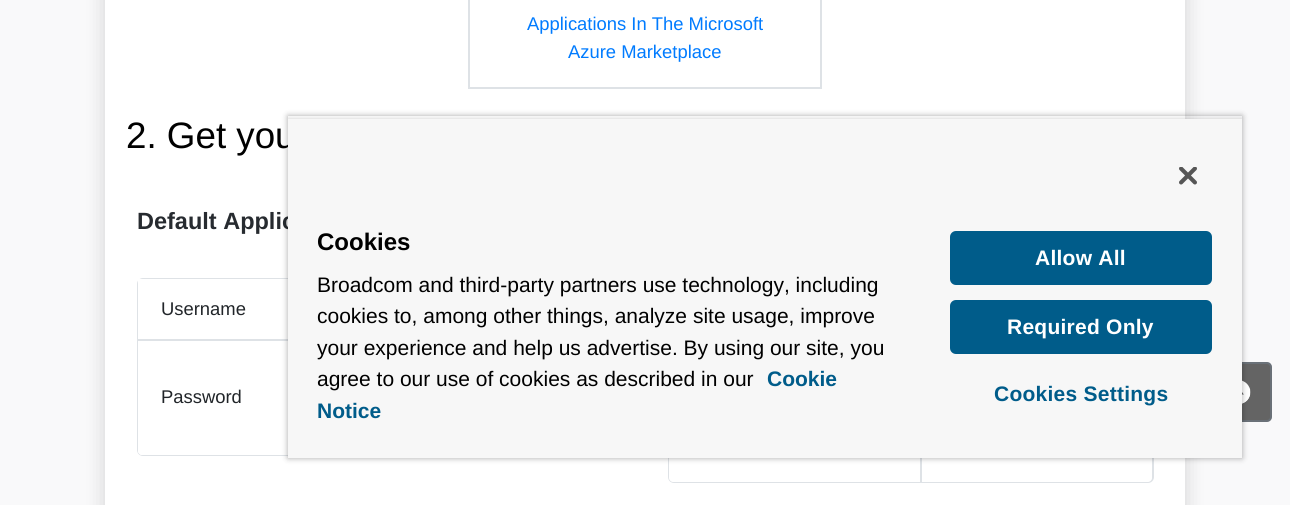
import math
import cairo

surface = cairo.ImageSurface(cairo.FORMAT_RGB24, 1290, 505)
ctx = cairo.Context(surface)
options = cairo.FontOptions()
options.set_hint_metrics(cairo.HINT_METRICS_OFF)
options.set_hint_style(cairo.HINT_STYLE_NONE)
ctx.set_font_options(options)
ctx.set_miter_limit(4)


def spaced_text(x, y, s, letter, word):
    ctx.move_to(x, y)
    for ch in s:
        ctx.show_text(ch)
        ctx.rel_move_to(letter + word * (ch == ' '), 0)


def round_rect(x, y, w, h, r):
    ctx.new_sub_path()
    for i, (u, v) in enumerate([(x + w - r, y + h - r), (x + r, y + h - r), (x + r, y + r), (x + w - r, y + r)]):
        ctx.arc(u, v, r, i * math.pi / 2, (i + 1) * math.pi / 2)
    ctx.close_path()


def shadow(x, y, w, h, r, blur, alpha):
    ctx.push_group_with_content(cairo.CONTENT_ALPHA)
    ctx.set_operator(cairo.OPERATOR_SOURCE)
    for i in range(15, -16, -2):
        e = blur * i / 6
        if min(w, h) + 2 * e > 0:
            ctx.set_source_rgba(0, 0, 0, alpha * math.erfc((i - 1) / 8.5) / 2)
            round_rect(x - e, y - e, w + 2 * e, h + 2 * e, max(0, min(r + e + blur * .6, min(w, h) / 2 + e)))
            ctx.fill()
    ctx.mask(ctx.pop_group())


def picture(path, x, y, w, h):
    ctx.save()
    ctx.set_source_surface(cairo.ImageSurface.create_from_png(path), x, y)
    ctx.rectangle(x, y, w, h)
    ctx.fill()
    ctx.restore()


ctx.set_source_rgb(0.973, 0.976, 0.98)
ctx.paint()
ctx.set_source_rgb(0, 0, 0)
shadow(105, -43, 1080, 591, 11, 10.5, 0.15)
ctx.set_source_rgb(1, 1, 1)
ctx.rectangle(105, 0, 1080, 505)
ctx.fill()
ctx.rectangle(469, -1, 352, 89)
ctx.set_source_rgb(0.871, 0.886, 0.902)
ctx.stroke()
ctx.select_font_face("Liberation Sans")
ctx.set_font_size(18.4)
ctx.set_source_rgb(0, 0.482, 1)
ctx.move_to(527, 30)
ctx.show_text("Applications In The Microsoft")
ctx.move_to(568, 58)
ctx.show_text("Azure Marketplace")
ctx.set_font_size(36.75)
ctx.set_source_rgb(0, 0, 0)
ctx.move_to(126, 148)
ctx.show_text("2. Get you")
ctx.select_font_face("Liberation Sans", cairo.FONT_SLANT_NORMAL, cairo.FONT_WEIGHT_BOLD)
ctx.set_font_size(23.5)
ctx.set_source_rgb(0.153, 0.169, 0.188)
ctx.move_to(137, 229)
ctx.show_text("Default Applic")
round_rect(138, 279, 484, 176, 5)
ctx.set_source_rgb(0.871, 0.886, 0.902)
ctx.stroke()
ctx.set_source_rgb(1, 1, 1)
ctx.new_path()
ctx.move_to(138, 279)
ctx.line_to(621, 279)
ctx.line_to(621, 451)
ctx.curve_to(621, 453, 619, 455, 617, 455)
ctx.line_to(142, 455)
ctx.curve_to(140, 455, 138, 453, 138, 451)
ctx.close_path()
ctx.fill()
ctx.select_font_face("Liberation Sans")
ctx.set_font_size(18.4)
ctx.set_source_rgb(0.129, 0.145, 0.161)
ctx.move_to(161, 315)
ctx.show_text("Username")
ctx.set_source_rgb(1, 1, 1)
ctx.new_path()
ctx.move_to(138, 341)
ctx.line_to(375, 341)
ctx.line_to(375, 455)
ctx.line_to(142, 455)
ctx.curve_to(140, 455, 138, 453, 138, 451)
ctx.close_path()
ctx.fill()
ctx.set_source_rgb(0.871, 0.886, 0.902)
ctx.rectangle(138, 339, 150, 2)
ctx.fill()
ctx.set_source_rgb(0.129, 0.145, 0.161)
ctx.move_to(161, 403)
ctx.show_text("Password")
round_rect(669, 279, 484, 203, 5)
ctx.set_source_rgb(0.871, 0.886, 0.902)
ctx.stroke()
ctx.set_source_rgb(1, 1, 1)
ctx.new_path()
ctx.move_to(669, 341)
ctx.line_to(920, 341)
ctx.line_to(920, 482)
ctx.line_to(673, 482)
ctx.curve_to(671, 482, 669, 480, 669, 478)
ctx.close_path()
ctx.fill()
ctx.new_path()
ctx.move_to(921, 341)
ctx.line_to(1152, 341)
ctx.line_to(1152, 478)
ctx.curve_to(1152, 480, 1150, 482, 1148, 482)
ctx.line_to(921, 482)
ctx.close_path()
ctx.fill()
ctx.set_source_rgb(0.871, 0.886, 0.902)
ctx.rectangle(920, 458, 2, 24)
ctx.fill()
ctx.set_source_rgba(0, 0, 0, 0.6)
round_rect(1162, 363, 109, 58, 4)
ctx.fill_preserve()
ctx.set_source_rgb(0.416, 0.443, 0.471)
ctx.stroke()
picture("img1.png", 1242, 380, 9, 24)
ctx.save()
ctx.set_fill_rule(cairo.FILL_RULE_EVEN_ODD)
ctx.new_path()
ctx.move_to(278, 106)
ctx.line_to(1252, 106)
ctx.line_to(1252, 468)
ctx.line_to(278, 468)
ctx.close_path()
ctx.move_to(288, 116)
ctx.line_to(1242, 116)
ctx.line_to(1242, 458)
ctx.line_to(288, 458)
ctx.close_path()
ctx.clip()
ctx.set_source_rgb(0, 0, 0)
shadow(288, 116, 954, 342, 0, 3, 0.35)
ctx.restore()
ctx.save()
ctx.rectangle(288, 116, 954, 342)
ctx.clip()
ctx.set_source_rgb(0, 0, 0)
shadow(288, 119, 954, 339, 0, 3, 0.2)
ctx.restore()
ctx.set_source_rgb(0.965, 0.965, 0.965)
ctx.rectangle(288, 119, 954, 339)
ctx.fill()
picture("img2.png", 1179, 167, 18, 18)
ctx.select_font_face("Liberation Sans", cairo.FONT_SLANT_NORMAL, cairo.FONT_WEIGHT_BOLD)
ctx.set_font_size(24)
ctx.set_source_rgb(0, 0, 0)
ctx.move_to(317, 250)
ctx.show_text("Cookies")
ctx.select_font_face("Liberation Sans")
ctx.set_font_size(21)
ctx.move_to(317, 292)
ctx.show_text("Broadcom and third-party partners use technology, including")
ctx.move_to(317, 323)
ctx.show_text("cookies to, among other things, analyze site usage, improve")
ctx.move_to(317, 355)
ctx.show_text("your experience and help us advertise. By using our site, you")
ctx.move_to(317, 386)
ctx.show_text("agree to our use of cookies as described in our")
ctx.select_font_face("Liberation Sans", cairo.FONT_SLANT_NORMAL, cairo.FONT_WEIGHT_BOLD)
ctx.set_source_rgb(0, 0.361, 0.541)
ctx.move_to(767, 386)
ctx.show_text("Cookie")
ctx.move_to(317, 418)
ctx.show_text("Notice")
round_rect(951, 232, 260, 52, 5)
ctx.fill_preserve()
ctx.stroke()
ctx.set_source_rgb(1, 1, 1)
spaced_text(1035, 265, "Allow All", 0.25, 0)
ctx.set_source_rgb(0, 0.361, 0.541)
round_rect(951, 301, 260, 52, 5)
ctx.fill_preserve()
ctx.stroke()
ctx.set_source_rgb(1, 1, 1)
spaced_text(1007, 334, "Required Only", 0.25, 0)
ctx.set_source_rgb(0, 0.361, 0.541)
spaced_text(994, 401, "Cookies Settings", 0.25, 0)
surface.write_to_png("page.png")
